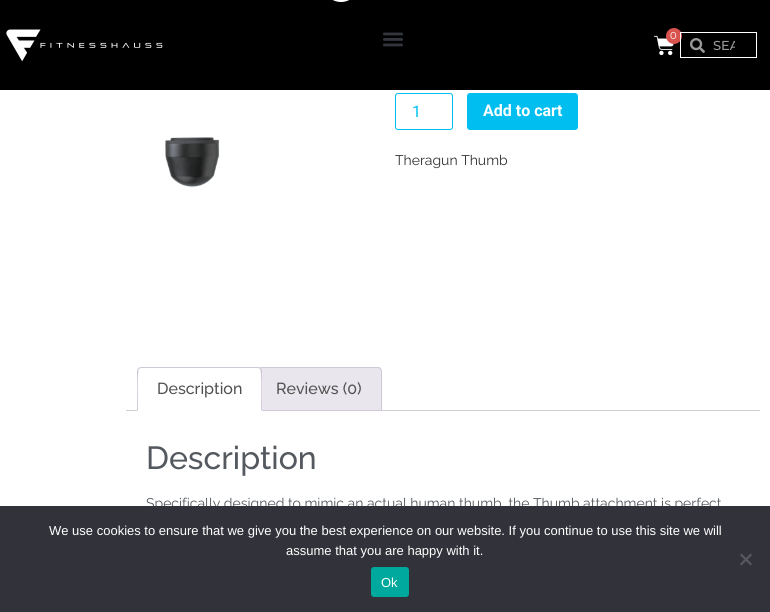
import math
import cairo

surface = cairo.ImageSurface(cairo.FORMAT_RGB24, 770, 612)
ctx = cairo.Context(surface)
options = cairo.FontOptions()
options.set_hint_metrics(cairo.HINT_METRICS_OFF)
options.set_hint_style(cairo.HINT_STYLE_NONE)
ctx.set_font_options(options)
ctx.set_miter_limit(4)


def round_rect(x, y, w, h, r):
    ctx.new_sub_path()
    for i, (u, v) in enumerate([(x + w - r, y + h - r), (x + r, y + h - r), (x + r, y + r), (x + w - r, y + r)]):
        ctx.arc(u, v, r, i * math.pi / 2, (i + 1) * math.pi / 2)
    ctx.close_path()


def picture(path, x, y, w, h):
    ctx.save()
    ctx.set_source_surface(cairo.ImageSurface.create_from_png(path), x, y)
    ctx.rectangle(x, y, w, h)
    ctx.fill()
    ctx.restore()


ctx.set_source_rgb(1, 1, 1)
ctx.paint()
ctx.set_source_rgb(0, 0, 0)
ctx.rectangle(0, 0, 770, 90)
ctx.fill()
picture("img1.png", 6, 29, 157, 33)
picture("img2.png", 383, 32, 20, 15)
picture("img3.png", 654, 35, 20, 21)
ctx.set_source_rgb(0.851, 0.325, 0.31)
ctx.arc(674, 36, 8, 0, 2 * math.pi)
ctx.fill()
ctx.select_font_face("Montserrat")
ctx.set_font_size(10)
ctx.set_source_rgb(1, 1, 1)
ctx.move_to(670, 39)
ctx.show_text("0")
ctx.rectangle(680.5, 32.5, 76, 25)
ctx.set_line_width(1)
ctx.stroke()
picture("img4.png", 690, 38, 15, 15)
ctx.save()
ctx.rectangle(713, 37, 22, 16)
ctx.clip()
ctx.select_font_face("Montserrat Medium")
ctx.set_font_size(13)
ctx.set_source_rgb(0.6, 0.6, 0.6)
ctx.move_to(713, 50)
ctx.show_text("SEA")
ctx.restore()
round_rect(323, -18, 36, 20, 18)
ctx.fill()
picture("img5.png", 165, 137, 55, 50)
round_rect(395.5, 93.5, 57, 36, 2.5)
ctx.set_source_rgb(0, 0.749, 0.941)
ctx.stroke()
ctx.select_font_face("Roboto")
ctx.set_font_size(16)
ctx.move_to(412, 117)
ctx.show_text("1")
round_rect(467, 93, 111, 37, 3)
ctx.fill()
ctx.select_font_face("Roboto", cairo.FONT_SLANT_NORMAL, cairo.FONT_WEIGHT_BOLD)
ctx.set_source_rgb(1, 1, 1)
ctx.move_to(483, 116)
ctx.show_text("Add to cart")
ctx.select_font_face("Raleway")
ctx.set_font_size(14)
ctx.set_source_rgb(0.2, 0.2, 0.2)
ctx.move_to(395, 165)
ctx.show_text("Theragun Thumb")
ctx.set_source_rgb(0.827, 0.808, 0.824)
ctx.rectangle(126, 410, 634, 1)
ctx.fill()
ctx.set_source_rgb(0.914, 0.902, 0.929)
ctx.new_path()
ctx.move_to(260, 367.5)
ctx.line_to(378, 367.5)
ctx.curve_to(380, 367.5, 381.5, 369, 381.5, 371)
ctx.line_to(381.5, 410.5)
ctx.line_to(256.5, 410.5)
ctx.line_to(256.5, 371)
ctx.curve_to(256.5, 369, 258, 367.5, 260, 367.5)
ctx.close_path()
ctx.fill_preserve()
ctx.set_source_rgb(0.812, 0.784, 0.847)
ctx.stroke()
ctx.set_source_rgb(1, 1, 1)
ctx.new_path()
ctx.move_to(141, 367)
ctx.line_to(258, 367)
ctx.curve_to(260, 367, 262, 369, 262, 371)
ctx.line_to(262, 411)
ctx.line_to(137, 411)
ctx.line_to(137, 371)
ctx.curve_to(137, 369, 139, 367, 141, 367)
ctx.close_path()
ctx.fill()
ctx.set_source_rgb(0.812, 0.784, 0.847)
ctx.new_path()
ctx.move_to(141, 367)
ctx.line_to(138, 368)
ctx.line_to(139, 369)
ctx.line_to(141, 368)
ctx.line_to(258, 368)
ctx.line_to(260, 369)
ctx.line_to(261, 368)
ctx.line_to(258, 367)
ctx.close_path()
ctx.fill()
ctx.new_path()
ctx.move_to(262, 411)
ctx.line_to(262, 371)
ctx.curve_to(262, 370, 262, 369, 261, 368)
ctx.line_to(260, 369)
ctx.curve_to(262, 371, 261, 405, 261, 410)
ctx.close_path()
ctx.fill()
ctx.set_source_rgb(1, 1, 1)
ctx.new_path()
ctx.move_to(262, 411)
ctx.line_to(261, 410)
ctx.line_to(138, 410)
ctx.line_to(137, 411)
ctx.close_path()
ctx.fill()
ctx.set_source_rgb(0.812, 0.784, 0.847)
ctx.new_path()
ctx.move_to(137, 411)
ctx.line_to(138, 410)
ctx.curve_to(138, 405, 137, 371, 139, 369)
ctx.line_to(138, 368)
ctx.line_to(137, 371)
ctx.close_path()
ctx.fill()
ctx.select_font_face("Raleway Medium")
ctx.set_font_size(16)
ctx.set_source_rgb(0.318, 0.318, 0.318)
ctx.move_to(157, 394)
ctx.show_text("Description")
ctx.move_to(276, 394)
ctx.show_text("Reviews (0)")
ctx.set_font_size(32)
ctx.set_source_rgb(0.329, 0.349, 0.373)
ctx.move_to(146, 469)
ctx.show_text("Description")
ctx.select_font_face("Raleway")
ctx.set_font_size(14)
ctx.move_to(146, 508)
ctx.show_text("Specifically designed to mimic an actual human thumb, the Thumb attachment is perfect")
ctx.set_source_rgb(0.196, 0.196, 0.227)
ctx.rectangle(0, 506, 770, 106)
ctx.fill()
ctx.select_font_face("Liberation Sans")
ctx.set_font_size(13)
ctx.set_source_rgb(1, 1, 1)
ctx.move_to(49, 535)
ctx.show_text("We use cookies to ensure that we give you the best experience on our website. If you continue to use this site we will")
ctx.move_to(286, 555)
ctx.show_text("assume that you are happy with it.")
ctx.set_source_rgb(0.349, 0.349, 0.365)
ctx.new_path()
ctx.move_to(750.5, 553.5)
ctx.line_to(752, 555)
ctx.line_to(741.5, 565.5)
ctx.line_to(740, 564)
ctx.close_path()
ctx.fill()
ctx.new_path()
ctx.move_to(740, 555)
ctx.line_to(741.5, 553.5)
ctx.line_to(752, 564)
ctx.line_to(750.5, 565.5)
ctx.close_path()
ctx.fill()
ctx.set_source_rgb(0, 0.663, 0.616)
round_rect(371, 567, 38, 30, 3)
ctx.fill()
ctx.set_source_rgb(1, 1, 1)
ctx.move_to(381, 587)
ctx.show_text("Ok")
surface.write_to_png("page.png")
